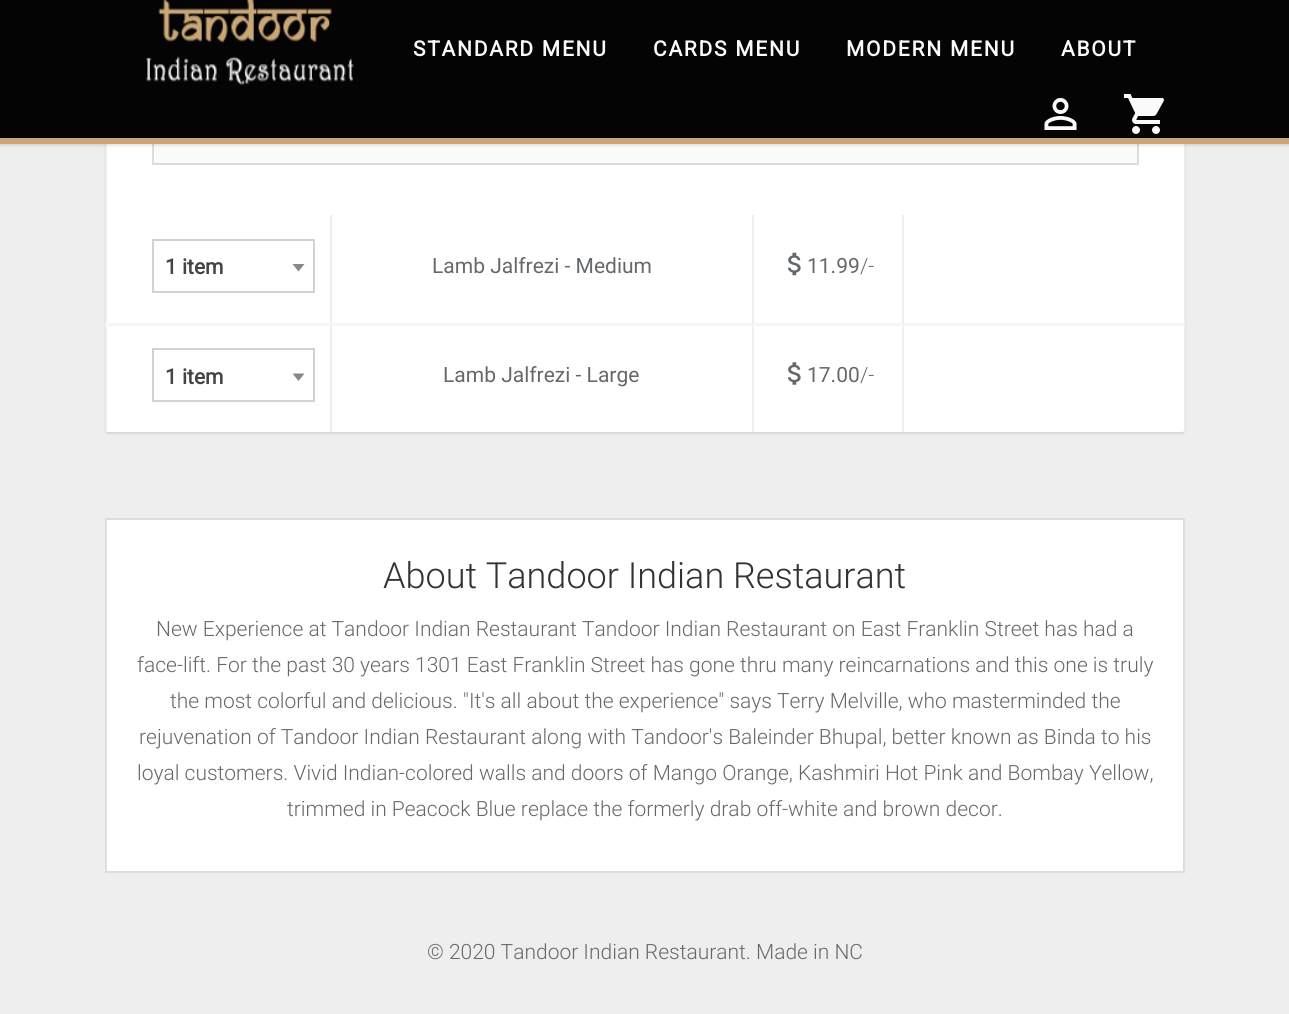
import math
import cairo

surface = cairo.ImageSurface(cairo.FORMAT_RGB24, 1289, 1014)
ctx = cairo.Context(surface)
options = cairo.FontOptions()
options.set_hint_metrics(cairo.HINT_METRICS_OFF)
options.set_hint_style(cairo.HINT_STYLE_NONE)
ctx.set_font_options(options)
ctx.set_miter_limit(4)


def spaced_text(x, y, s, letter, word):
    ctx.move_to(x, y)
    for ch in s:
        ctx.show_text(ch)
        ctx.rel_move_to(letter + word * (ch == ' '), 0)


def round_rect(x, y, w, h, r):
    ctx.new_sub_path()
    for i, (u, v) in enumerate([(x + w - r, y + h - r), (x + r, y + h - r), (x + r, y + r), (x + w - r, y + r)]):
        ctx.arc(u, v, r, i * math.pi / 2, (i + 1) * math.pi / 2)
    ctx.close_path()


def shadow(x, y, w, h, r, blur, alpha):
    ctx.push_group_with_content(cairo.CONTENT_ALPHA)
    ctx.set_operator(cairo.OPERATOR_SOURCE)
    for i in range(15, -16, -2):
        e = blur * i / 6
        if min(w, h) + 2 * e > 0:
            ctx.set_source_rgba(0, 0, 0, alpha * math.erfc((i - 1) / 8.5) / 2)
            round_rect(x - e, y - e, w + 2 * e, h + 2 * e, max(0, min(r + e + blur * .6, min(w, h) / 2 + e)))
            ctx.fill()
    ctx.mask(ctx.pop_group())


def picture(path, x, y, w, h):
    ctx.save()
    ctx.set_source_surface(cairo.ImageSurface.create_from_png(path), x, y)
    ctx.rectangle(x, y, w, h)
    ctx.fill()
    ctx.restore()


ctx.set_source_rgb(0.933, 0.933, 0.933)
ctx.paint()
ctx.set_source_rgb(0, 0, 0)
shadow(105, -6, 1080, 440, 3, 1, 0.1)
ctx.set_source_rgb(1, 1, 1)
round_rect(105, -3, 1080, 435, 3)
ctx.fill()
ctx.set_source_rgb(0.933, 0.933, 0.933)
ctx.rectangle(1184, 144, 1, 72)
ctx.fill()
ctx.rectangle(105, 144, 2, 72)
ctx.fill()
ctx.set_source_rgb(0.984, 0.984, 0.984)
ctx.rectangle(154, 144, 983, 19)
ctx.fill()
ctx.rectangle(153, 108, 985, 56)
ctx.set_source_rgb(0.863, 0.863, 0.863)
ctx.stroke()
ctx.set_source_rgb(0, 0, 0)
shadow(0, 2, 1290, 144, 0, 1, 0.1)
ctx.set_source_rgb(0.016, 0.016, 0.016)
ctx.rectangle(0, 0, 1289, 138)
ctx.fill()
ctx.set_source_rgb(0.792, 0.651, 0.467)
ctx.rectangle(0, 138, 1289, 6)
ctx.fill()
picture("img1.png", 146, 0, 208, 86)
ctx.select_font_face("Roboto", cairo.FONT_SLANT_NORMAL, cairo.FONT_WEIGHT_BOLD)
ctx.set_font_size(21)
ctx.set_source_rgb(0.98, 0.98, 0.984)
spaced_text(413, 56, "STANDARD MENU", 1.75, 0)
spaced_text(653, 56, "CARDS MENU", 1.75, 0)
spaced_text(846, 56, "MODERN MENU", 1.75, 0)
spaced_text(1061, 56, "ABOUT", 1.75, 0)
picture("img2.png", 1044, 98, 33, 32)
picture("img3.png", 1123, 94, 41, 40)
ctx.rectangle(153, 240, 161, 52)
ctx.set_source_rgb(0.824, 0.824, 0.824)
ctx.stroke()
ctx.set_source_rgb(0.267, 0.267, 0.267)
ctx.move_to(165, 274)
ctx.show_text("1 item")
ctx.set_source_rgb(0.533, 0.533, 0.533)
ctx.new_path()
ctx.move_to(292.5, 264)
ctx.line_to(304.5, 264)
ctx.line_to(298.5, 271.5)
ctx.close_path()
ctx.fill()
ctx.select_font_face("Roboto")
ctx.set_source_rgb(0.4, 0.412, 0.424)
ctx.move_to(432, 273)
ctx.show_text("Lamb Jalfrezi - Medium")
picture("img4.png", 788, 252, 13, 24)
ctx.move_to(807, 273)
ctx.show_text("11.99")
ctx.select_font_face("Roboto Light")
ctx.move_to(860, 273)
ctx.show_text("/-")
ctx.set_source_rgb(0.933, 0.933, 0.933)
ctx.rectangle(105, 215, 2, 217)
ctx.fill()
ctx.rectangle(330, 215, 2, 217)
ctx.fill()
ctx.rectangle(752, 215, 2, 217)
ctx.fill()
ctx.rectangle(1184, 215, 1, 217)
ctx.fill()
ctx.rectangle(902, 215, 2, 217)
ctx.fill()
ctx.set_source_rgb(0.961, 0.961, 0.961)
ctx.rectangle(105, 323, 1080, 3)
ctx.fill()
ctx.rectangle(153, 349, 161, 52)
ctx.set_source_rgb(0.824, 0.824, 0.824)
ctx.stroke()
ctx.select_font_face("Roboto", cairo.FONT_SLANT_NORMAL, cairo.FONT_WEIGHT_BOLD)
ctx.set_source_rgb(0.267, 0.267, 0.267)
ctx.move_to(165, 384)
ctx.show_text("1 item")
ctx.set_source_rgb(0.533, 0.533, 0.533)
ctx.new_path()
ctx.move_to(292.5, 373.5)
ctx.line_to(304.5, 373.5)
ctx.line_to(298.5, 381)
ctx.close_path()
ctx.fill()
ctx.select_font_face("Roboto")
ctx.set_source_rgb(0.4, 0.412, 0.424)
ctx.move_to(443, 382)
ctx.show_text("Lamb Jalfrezi - Large")
picture("img5.png", 787, 362, 14, 23)
ctx.move_to(807, 382)
ctx.show_text("17.00")
ctx.select_font_face("Roboto Light")
ctx.move_to(860, 382)
ctx.show_text("/-")
ctx.set_source_rgb(1, 1, 1)
ctx.rectangle(106, 519, 1078, 353)
ctx.fill_preserve()
ctx.set_source_rgb(0.867, 0.867, 0.867)
ctx.stroke()
ctx.set_font_size(36)
ctx.set_source_rgb(0.2, 0.2, 0.2)
ctx.move_to(383, 588)
ctx.show_text("About Tandoor Indian Restaurant")
ctx.set_font_size(21)
ctx.set_source_rgb(0.4, 0.412, 0.424)
ctx.move_to(156, 636)
ctx.show_text("New Experience at Tandoor Indian Restaurant Tandoor Indian Restaurant on East Franklin Street has had a")
ctx.move_to(137, 672)
ctx.show_text("face-lift. For the past 30 years 1301 East Franklin Street has gone thru many reincarnations and this one is truly")
ctx.move_to(170, 708)
ctx.show_text("the most colorful and delicious. \"It's all about the experience\" says Terry Melville, who masterminded the")
ctx.move_to(139, 744)
ctx.show_text("rejuvenation of Tandoor Indian Restaurant along with Tandoor's Baleinder Bhupal, better known as Binda to his")
ctx.move_to(137, 780)
ctx.show_text("loyal customers. Vivid Indian-colored walls and doors of Mango Orange, Kashmiri Hot Pink and Bombay Yellow,")
ctx.move_to(287, 816)
ctx.show_text("trimmed in Peacock Blue replace the formerly drab off-white and brown decor.")
ctx.move_to(427, 959)
ctx.show_text("© 2020 Tandoor Indian Restaurant. Made in NC")
surface.write_to_png("page.png")
